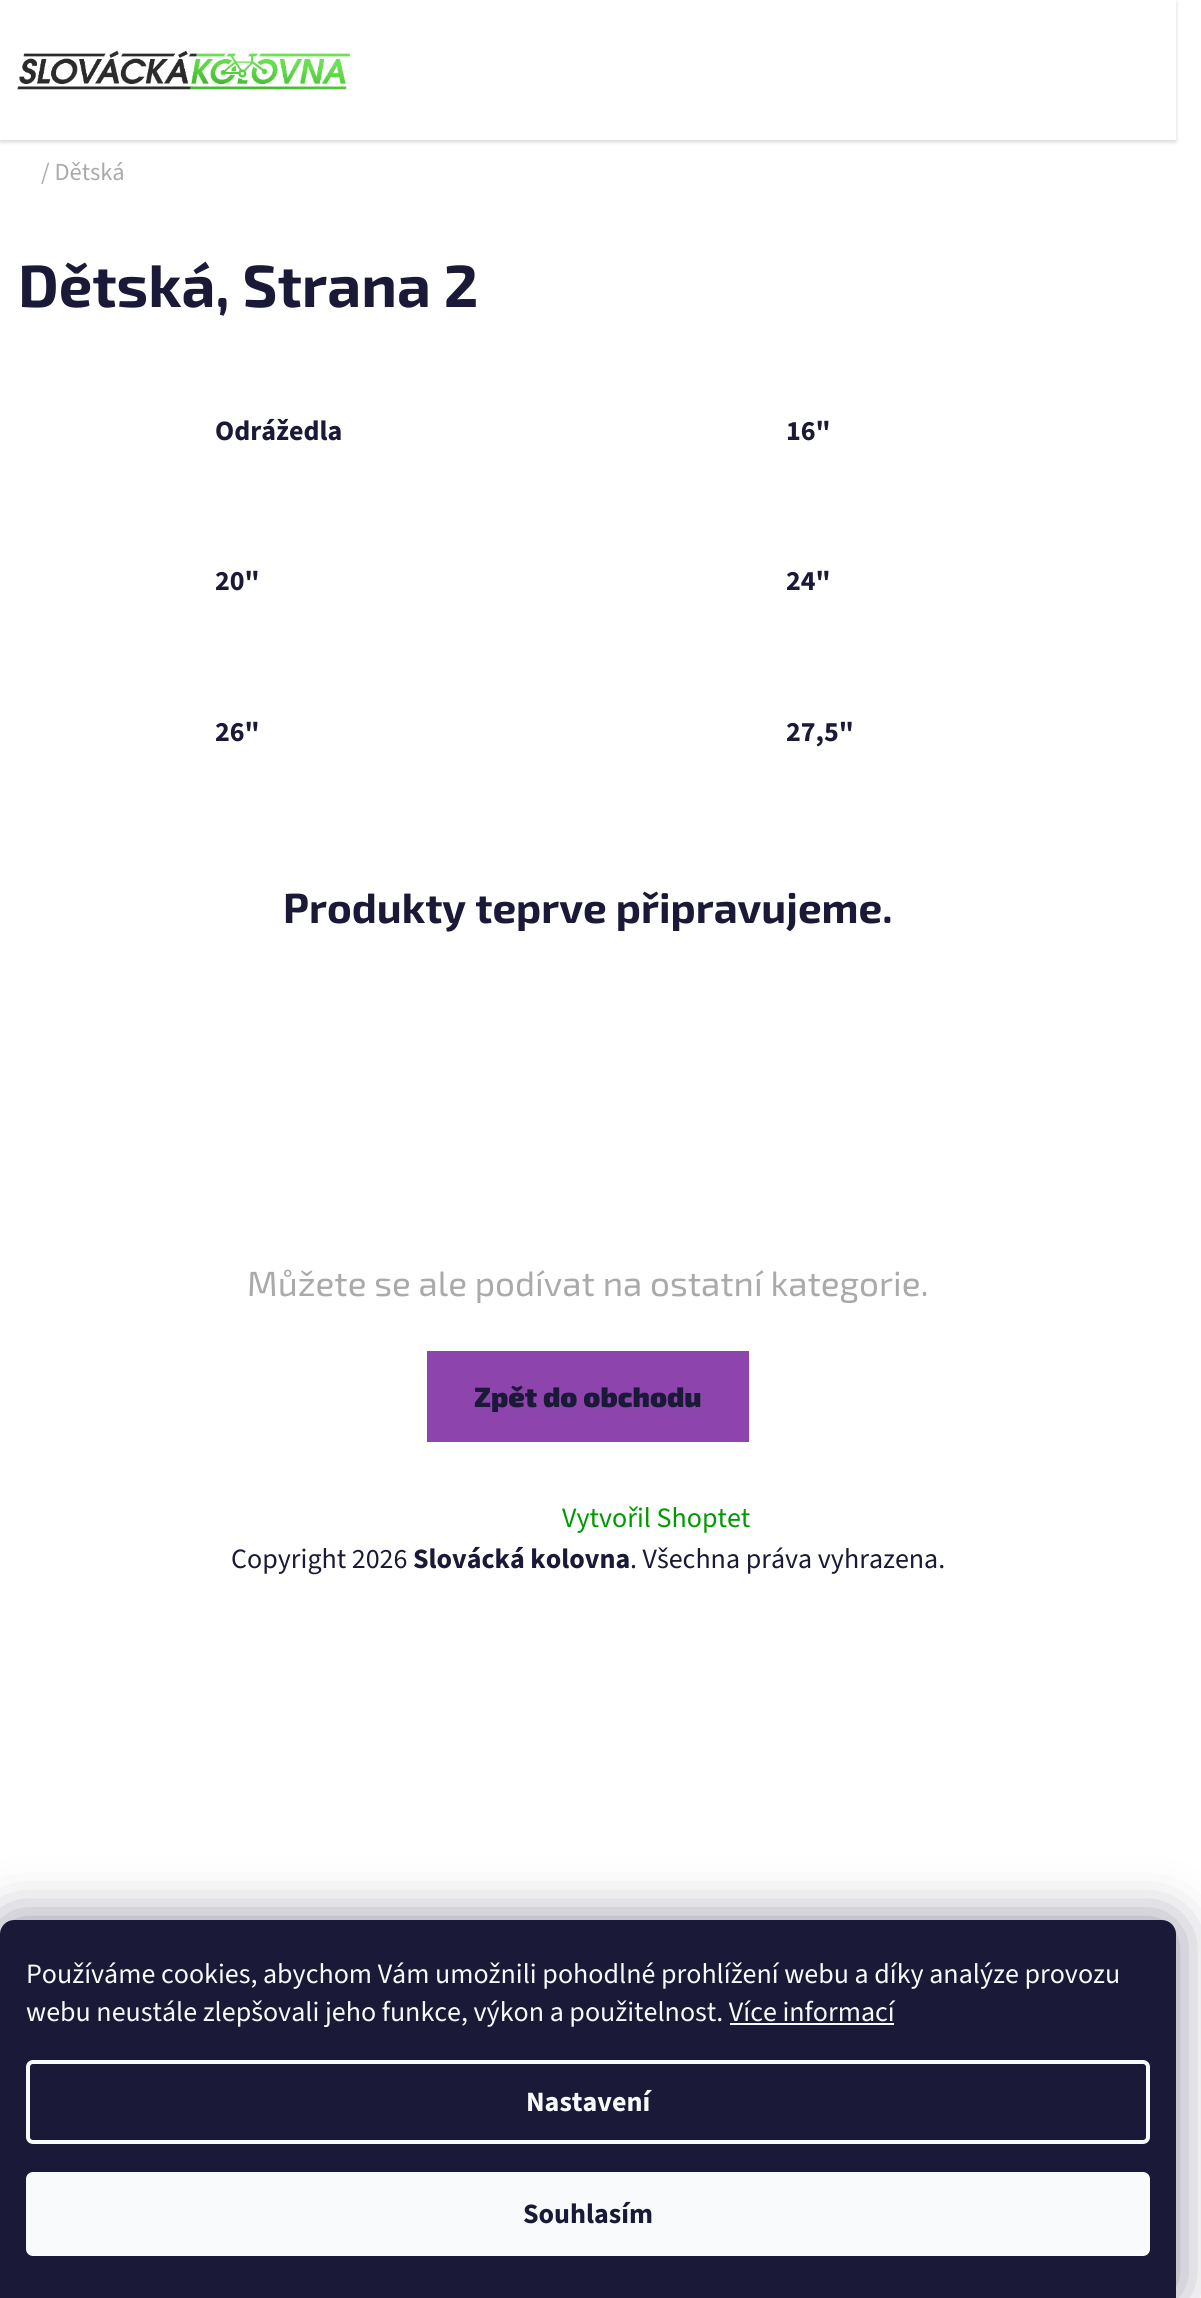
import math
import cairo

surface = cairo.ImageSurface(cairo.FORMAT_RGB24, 1201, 2298)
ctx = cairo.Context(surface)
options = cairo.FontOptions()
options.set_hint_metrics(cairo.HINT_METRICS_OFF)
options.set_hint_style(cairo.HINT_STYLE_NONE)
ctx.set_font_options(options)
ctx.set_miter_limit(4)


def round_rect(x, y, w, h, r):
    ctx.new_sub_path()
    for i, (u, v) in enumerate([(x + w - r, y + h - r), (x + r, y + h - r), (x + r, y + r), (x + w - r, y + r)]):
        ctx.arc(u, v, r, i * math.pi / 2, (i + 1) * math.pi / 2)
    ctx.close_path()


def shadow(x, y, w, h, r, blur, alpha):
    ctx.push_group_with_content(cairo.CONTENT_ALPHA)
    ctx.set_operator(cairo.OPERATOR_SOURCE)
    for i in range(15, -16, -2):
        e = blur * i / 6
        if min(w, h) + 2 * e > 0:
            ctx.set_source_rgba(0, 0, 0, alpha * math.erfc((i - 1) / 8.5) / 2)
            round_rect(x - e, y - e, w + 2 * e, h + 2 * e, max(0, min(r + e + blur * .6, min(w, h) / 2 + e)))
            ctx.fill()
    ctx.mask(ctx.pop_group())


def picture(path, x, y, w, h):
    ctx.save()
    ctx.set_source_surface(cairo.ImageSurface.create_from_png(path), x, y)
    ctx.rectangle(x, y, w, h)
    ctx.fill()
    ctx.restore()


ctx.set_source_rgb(1, 1, 1)
ctx.paint()
ctx.save()
ctx.set_fill_rule(cairo.FILL_RULE_EVEN_ODD)
ctx.new_path()
ctx.move_to(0, 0)
ctx.line_to(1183, 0)
ctx.line_to(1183, 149)
ctx.line_to(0, 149)
ctx.close_path()
ctx.move_to(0, 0)
ctx.line_to(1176, 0)
ctx.line_to(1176, 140)
ctx.line_to(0, 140)
ctx.close_path()
ctx.clip()
ctx.set_source_rgb(0, 0, 0)
shadow(0, 2, 1176, 140, 0, 2, 0.16)
ctx.restore()
picture("img1.png", 17, 50, 333, 40)
ctx.select_font_face("Source Sans 3")
ctx.set_font_size(24.5)
ctx.set_source_rgb(0.667, 0.667, 0.667)
ctx.move_to(41, 180)
ctx.show_text("/ Dětská")
ctx.select_font_face("Exo 2", cairo.FONT_SLANT_NORMAL, cairo.FONT_WEIGHT_BOLD)
ctx.set_font_size(59.5)
ctx.set_source_rgb(0.102, 0.098, 0.216)
ctx.move_to(18, 307)
ctx.show_text("Dětská, Strana 2")
ctx.select_font_face("Source Sans 3", cairo.FONT_SLANT_NORMAL, cairo.FONT_WEIGHT_BOLD)
ctx.set_font_size(28)
ctx.move_to(215, 440)
ctx.show_text("Odrážedla")
ctx.move_to(786, 440)
ctx.show_text("16\"")
ctx.move_to(215, 590)
ctx.show_text("20\"")
ctx.move_to(786, 590)
ctx.show_text("24\"")
ctx.move_to(215, 741)
ctx.show_text("26\"")
ctx.move_to(786, 741)
ctx.show_text("27,5\"")
ctx.select_font_face("Exo 2", cairo.FONT_SLANT_NORMAL, cairo.FONT_WEIGHT_BOLD)
ctx.set_font_size(42)
ctx.move_to(283, 923)
ctx.show_text("Produkty teprve připravujeme.")
ctx.select_font_face("Exo 2")
ctx.set_font_size(35)
ctx.set_source_rgb(0.667, 0.667, 0.667)
ctx.move_to(247, 1296)
ctx.show_text("Můžete se ale podívat na ostatní kategorie.")
ctx.set_source_rgb(0.557, 0.267, 0.678)
ctx.rectangle(427, 1351, 322, 91)
ctx.fill()
ctx.select_font_face("Exo 2 Black")
ctx.set_font_size(28)
ctx.set_source_rgb(0.102, 0.098, 0.216)
ctx.move_to(474, 1407)
ctx.show_text("Zpět do obchodu")
ctx.select_font_face("Source Sans 3")
ctx.set_source_rgb(0, 0.6, 0.004)
ctx.move_to(562, 1527)
ctx.show_text("Vytvořil Shoptet")
ctx.set_source_rgb(0.102, 0.098, 0.216)
ctx.move_to(231, 1568)
ctx.show_text("Copyright 2026")
ctx.select_font_face("Source Sans 3", cairo.FONT_SLANT_NORMAL, cairo.FONT_WEIGHT_BOLD)
ctx.move_to(413, 1568)
ctx.show_text("Slovácká kolovna")
ctx.select_font_face("Source Sans 3")
ctx.move_to(630, 1568)
ctx.show_text(". Všechna práva vyhrazena.")
ctx.set_source_rgb(0.106, 0.098, 0.224)
shadow(0, 1920, 1176, 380, 14, 26, 0.5)
ctx.set_source_rgb(0.102, 0.098, 0.216)
ctx.new_path()
ctx.move_to(14, 1920)
ctx.line_to(1162, 1920)
ctx.curve_to(1169.5, 1920, 1176, 1926.5, 1176, 1934)
ctx.line_to(1176, 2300)
ctx.line_to(0, 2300)
ctx.line_to(0, 1934)
ctx.curve_to(0, 1926.5, 6.5, 1920, 14, 1920)
ctx.close_path()
ctx.fill()
ctx.set_source_rgb(0.973, 0.98, 0.984)
ctx.move_to(26, 1983)
ctx.show_text("Používáme cookies, abychom Vám umožnili pohodlné prohlížení webu a díky analýze provozu")
ctx.move_to(26, 2021)
ctx.show_text("webu neustále zlepšovali jeho funkce, výkon a použitelnost. Více informací")
ctx.rectangle(730, 2023, 164, 2)
ctx.fill()
round_rect(28, 2062, 1120, 80, 5)
ctx.set_line_width(4)
ctx.stroke()
ctx.select_font_face("Source Sans 3", cairo.FONT_SLANT_NORMAL, cairo.FONT_WEIGHT_BOLD)
ctx.move_to(526, 2111)
ctx.show_text("Nastavení")
round_rect(26, 2172, 1124, 84, 7)
ctx.fill()
ctx.set_source_rgb(0.102, 0.098, 0.216)
ctx.move_to(523, 2223)
ctx.show_text("Souhlasím")
surface.write_to_png("page.png")
